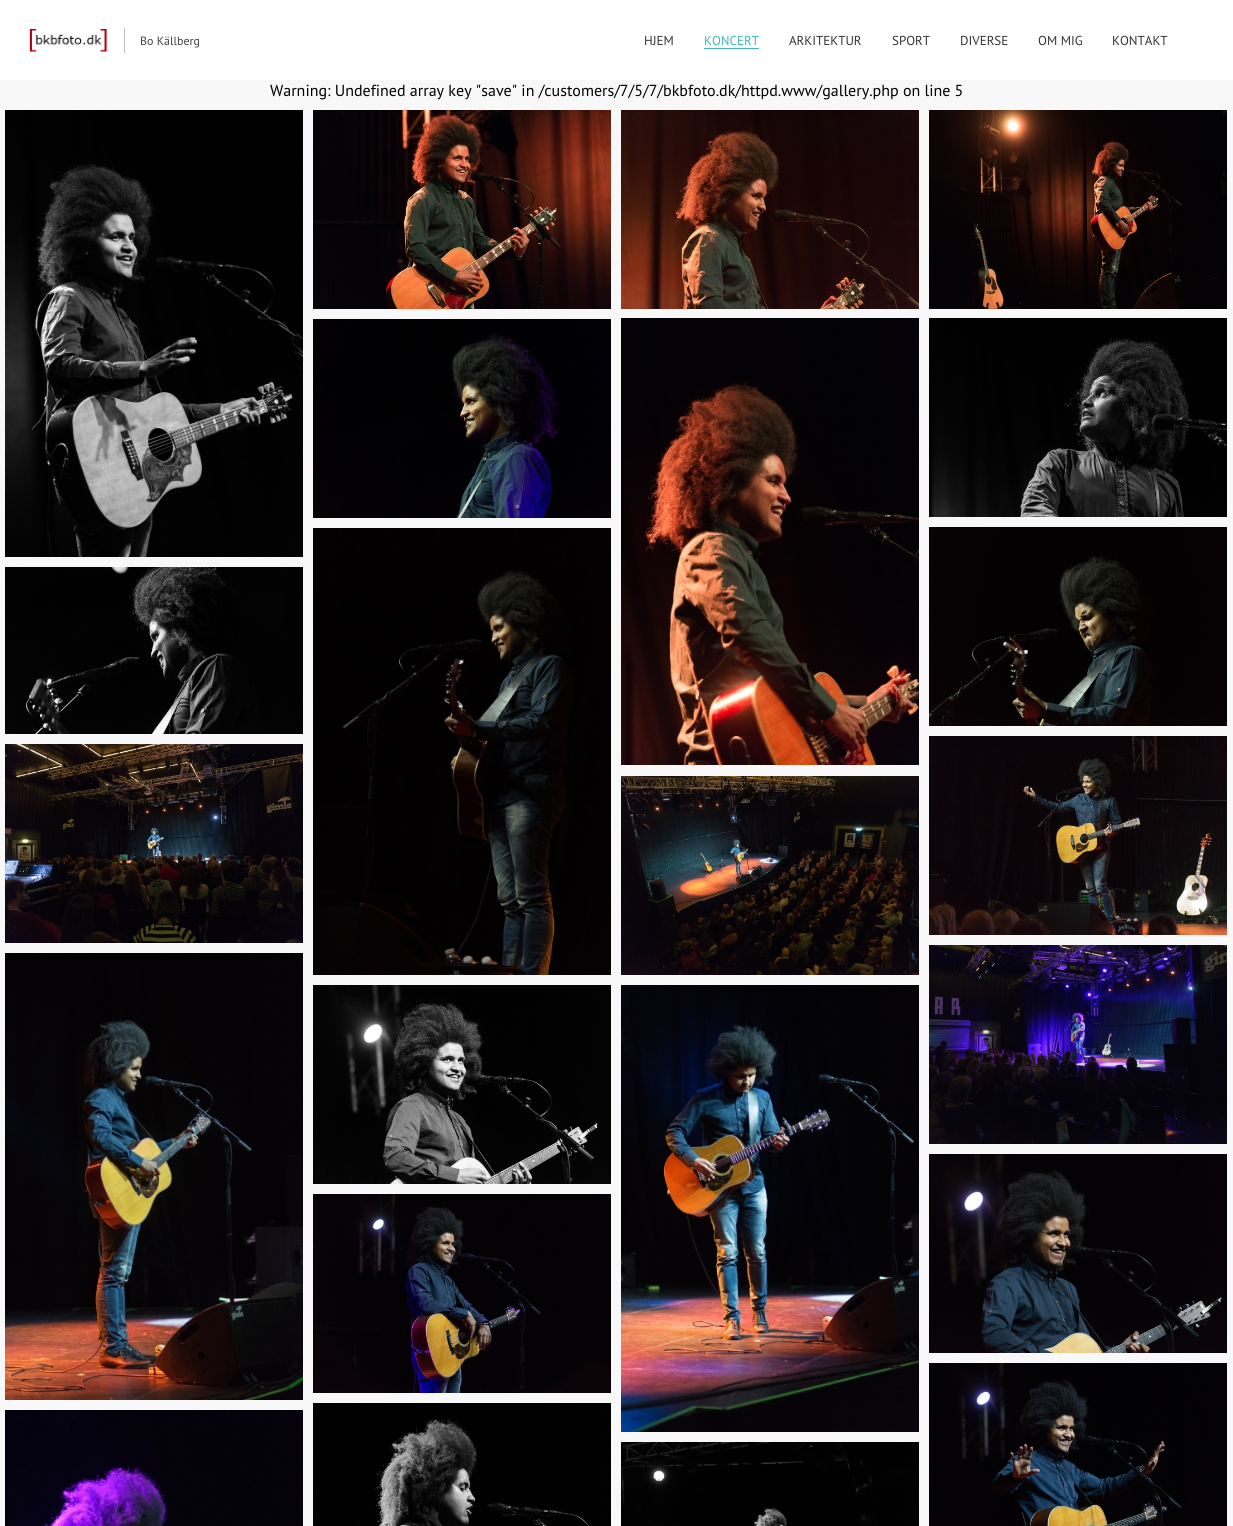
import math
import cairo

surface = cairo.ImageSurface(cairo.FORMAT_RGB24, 1233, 1526)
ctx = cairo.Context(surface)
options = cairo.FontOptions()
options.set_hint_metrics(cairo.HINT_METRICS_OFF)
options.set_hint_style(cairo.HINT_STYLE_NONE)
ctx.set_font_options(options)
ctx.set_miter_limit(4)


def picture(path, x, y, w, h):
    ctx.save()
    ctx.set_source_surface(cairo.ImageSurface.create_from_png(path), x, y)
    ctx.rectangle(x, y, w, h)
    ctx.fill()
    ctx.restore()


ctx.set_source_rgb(0.969, 0.969, 0.969)
ctx.paint()
ctx.set_source_rgb(1, 1, 1)
ctx.rectangle(0, 0, 1233, 80)
ctx.fill()
picture("img1.png", 29, 29, 79, 23)
ctx.set_source_rgb(0.745, 0.745, 0.745)
ctx.rectangle(124, 28, 1, 25)
ctx.fill()
ctx.select_font_face("PT Sans")
ctx.set_font_size(12)
ctx.set_source_rgb(0.263, 0.263, 0.263)
ctx.move_to(140, 45)
ctx.show_text("Bo Källberg")
ctx.set_font_size(13)
ctx.set_source_rgb(0.204, 0.204, 0.204)
ctx.move_to(644, 45)
ctx.show_text("HJEM")
ctx.set_source_rgb(0.251, 0.718, 0.722)
ctx.move_to(704, 45)
ctx.show_text("KONCERT")
ctx.rectangle(704, 48, 55, 1)
ctx.fill()
ctx.set_source_rgb(0.204, 0.204, 0.204)
ctx.move_to(789, 45)
ctx.show_text("ARKITEKTUR")
ctx.move_to(892, 45)
ctx.show_text("SPORT")
ctx.move_to(960, 45)
ctx.show_text("DIVERSE")
ctx.move_to(1038, 45)
ctx.show_text("OM MIG")
ctx.move_to(1112, 45)
ctx.show_text("KONTAKT")
ctx.set_font_size(16)
ctx.set_source_rgb(0, 0, 0)
ctx.move_to(270, 96)
ctx.show_text("Warning: Undefined array key \"save\" in /customers/7/5/7/bkbfoto.dk/httpd.www/gallery.php on line 5")
picture("img2.png", 5, 110, 298, 447)
picture("img3.png", 313, 110, 298, 199)
picture("img4.png", 621, 110, 298, 199)
picture("img5.png", 929, 110, 298, 199)
picture("img6.png", 313, 319, 298, 199)
picture("img7.png", 621, 318, 298, 447)
picture("img8.png", 929, 318, 298, 199)
picture("img9.png", 5, 567, 298, 167)
picture("img10.png", 313, 528, 298, 447)
picture("img11.png", 929, 527, 298, 199)
picture("img12.png", 5, 744, 298, 199)
picture("img13.png", 621, 776, 298, 199)
picture("img14.png", 929, 736, 298, 199)
picture("img15.png", 5, 953, 298, 447)
picture("img16.png", 313, 985, 298, 199)
picture("img17.png", 621, 985, 298, 447)
picture("img18.png", 929, 945, 298, 199)
picture("img19.png", 313, 1194, 298, 199)
picture("img20.png", 929, 1154, 298, 199)
picture("img21.png", 5, 1410, 298, 116)
picture("img22.png", 313, 1403, 298, 123)
picture("img23.png", 621, 1442, 298, 84)
picture("img24.png", 929, 1363, 298, 163)
surface.write_to_png("page.png")
